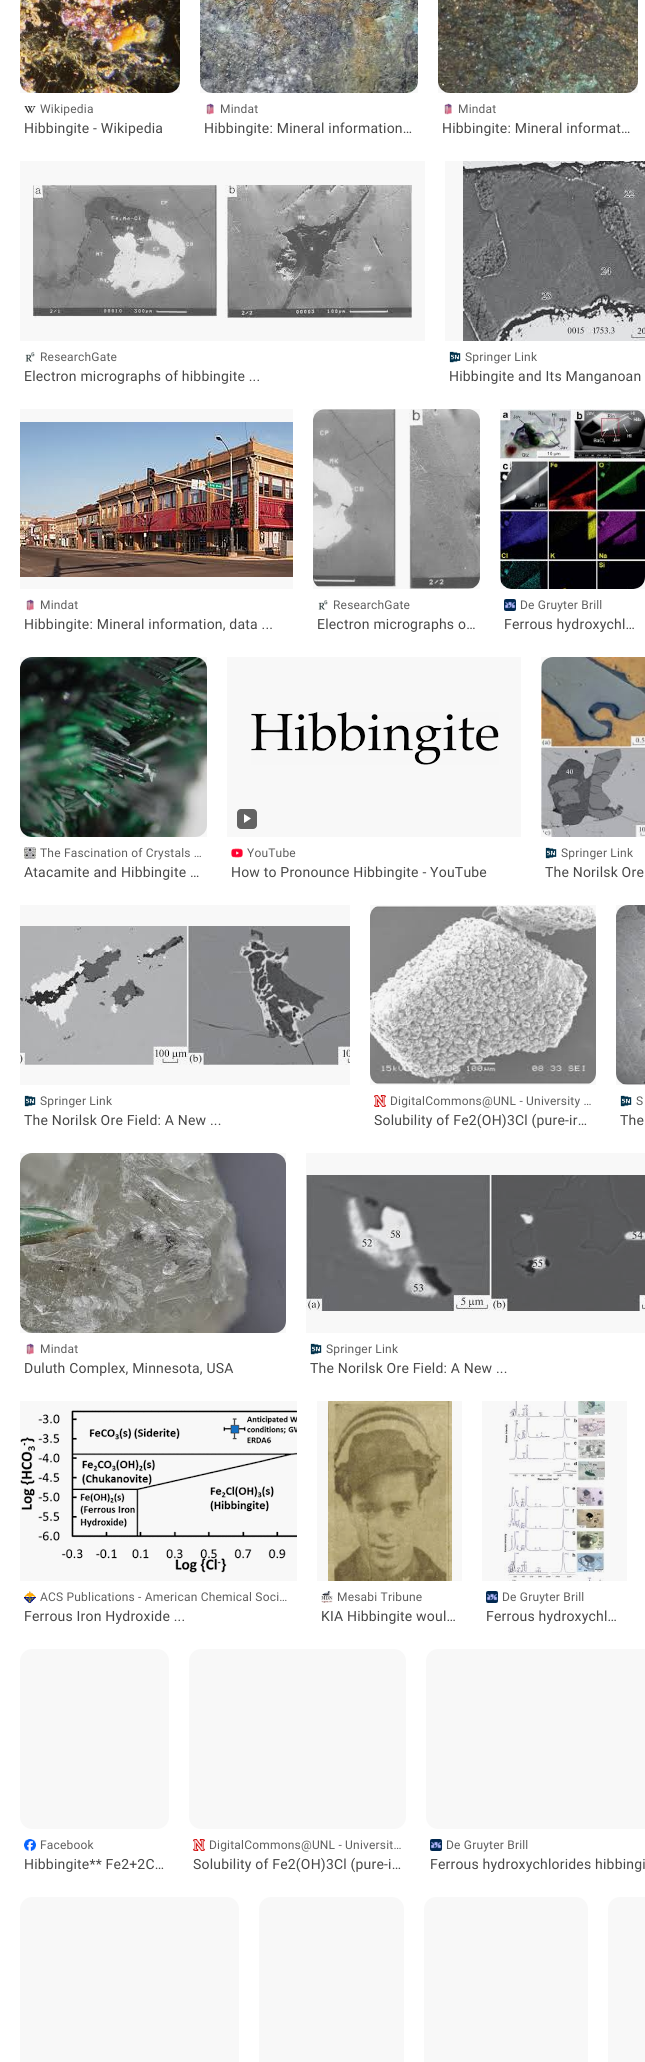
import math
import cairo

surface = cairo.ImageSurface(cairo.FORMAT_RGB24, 645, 2062)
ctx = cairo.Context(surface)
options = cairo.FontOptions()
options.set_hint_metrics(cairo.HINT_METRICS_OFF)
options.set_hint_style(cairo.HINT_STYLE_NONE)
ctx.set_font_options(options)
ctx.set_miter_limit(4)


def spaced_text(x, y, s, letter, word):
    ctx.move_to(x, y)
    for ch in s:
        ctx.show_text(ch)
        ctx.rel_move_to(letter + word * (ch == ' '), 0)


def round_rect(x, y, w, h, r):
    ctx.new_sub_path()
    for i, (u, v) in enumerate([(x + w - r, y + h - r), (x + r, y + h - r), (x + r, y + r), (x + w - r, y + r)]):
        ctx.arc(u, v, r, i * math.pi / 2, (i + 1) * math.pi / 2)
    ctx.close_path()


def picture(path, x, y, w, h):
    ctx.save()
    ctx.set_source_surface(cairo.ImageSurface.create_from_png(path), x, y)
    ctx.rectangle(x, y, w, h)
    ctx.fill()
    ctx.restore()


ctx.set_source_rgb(1, 1, 1)
ctx.paint()
picture("img1.png", 20, 0, 160, 93)
ctx.set_source_rgba(0, 0, 0, 0.03)
ctx.rectangle(20, 0, 160, 93)
ctx.fill()
picture("img2.png", 24, 106, 12, 8)
ctx.select_font_face("Roboto")
ctx.set_font_size(12)
ctx.set_source_rgb(0.369, 0.369, 0.369)
spaced_text(40, 113, "Wikipedia", 0.2, 0)
ctx.set_font_size(14)
ctx.set_source_rgb(0.278, 0.278, 0.278)
spaced_text(24, 133, "Hibbingite - Wikipedia", 0.2, 0)
picture("img3.png", 200, 0, 218, 93)
ctx.set_source_rgba(0, 0, 0, 0.03)
ctx.rectangle(200, 0, 218, 93)
ctx.fill()
picture("img4.png", 206, 103, 8, 12)
ctx.set_font_size(12)
ctx.set_source_rgb(0.369, 0.369, 0.369)
spaced_text(220, 113, "Mindat", 0.2, 0)
ctx.set_font_size(14)
ctx.set_source_rgb(0.278, 0.278, 0.278)
spaced_text(204, 133, "Hibbingite: Mineral information…", 0.2, 0)
picture("img5.png", 438, 0, 200, 93)
ctx.set_source_rgba(0, 0, 0, 0.03)
ctx.rectangle(438, 0, 200, 93)
ctx.fill()
picture("img6.png", 444, 103, 8, 12)
ctx.set_font_size(12)
ctx.set_source_rgb(0.369, 0.369, 0.369)
spaced_text(458, 113, "Mindat", 0.2, 0)
ctx.set_font_size(14)
ctx.set_source_rgb(0.278, 0.278, 0.278)
spaced_text(442, 133, "Hibbingite: Mineral informat…", 0.2, 0)
picture("img7.png", 33, 185, 379, 133)
ctx.set_source_rgba(0, 0, 0, 0.03)
ctx.rectangle(20, 161, 405, 180)
ctx.fill()
picture("img8.png", 25, 352, 10, 10)
ctx.set_font_size(12)
ctx.set_source_rgb(0.369, 0.369, 0.369)
spaced_text(40, 361, "ResearchGate", 0.2, 0)
ctx.set_font_size(14)
ctx.set_source_rgb(0.278, 0.278, 0.278)
spaced_text(24, 381, "Electron micrographs of hibbingite ...", 0.2, 0)
picture("img9.png", 463, 161, 182, 180)
ctx.set_source_rgba(0, 0, 0, 0.03)
ctx.rectangle(445, 161, 200, 180)
ctx.fill()
picture("img10.png", 449, 351, 12, 12)
ctx.set_font_size(12)
ctx.set_source_rgb(0.369, 0.369, 0.369)
spaced_text(465, 361, "Springer Link", 0.2, 0)
ctx.set_font_size(14)
ctx.set_source_rgb(0.278, 0.278, 0.278)
spaced_text(449, 381, "Hibbingite and Its Manganoan", 0.2, 0)
picture("img11.png", 20, 422, 273, 155)
ctx.set_source_rgba(0, 0, 0, 0.03)
ctx.rectangle(20, 409, 273, 180)
ctx.fill()
picture("img4.png", 26, 599, 8, 12)
ctx.set_font_size(12)
ctx.set_source_rgb(0.369, 0.369, 0.369)
spaced_text(40, 609, "Mindat", 0.2, 0)
ctx.set_font_size(14)
ctx.set_source_rgb(0.278, 0.278, 0.278)
spaced_text(24, 629, "Hibbingite: Mineral information, data ...", 0.2, 0)
picture("img12.png", 313, 409, 167, 180)
ctx.set_source_rgba(0, 0, 0, 0.03)
ctx.rectangle(313, 409, 167, 180)
ctx.fill()
picture("img8.png", 318, 600, 10, 10)
ctx.set_font_size(12)
ctx.set_source_rgb(0.369, 0.369, 0.369)
spaced_text(333, 609, "ResearchGate", 0.2, 0)
ctx.set_font_size(14)
ctx.set_source_rgb(0.278, 0.278, 0.278)
spaced_text(317, 629, "Electron micrographs o…", 0.2, 0)
picture("img13.png", 500, 409, 145, 180)
ctx.set_source_rgba(0, 0, 0, 0.03)
ctx.rectangle(500, 409, 145, 180)
ctx.fill()
picture("img14.png", 504, 599, 12, 12)
ctx.set_font_size(12)
ctx.set_source_rgb(0.369, 0.369, 0.369)
spaced_text(520, 609, "De Gruyter Brill", 0.2, 0)
ctx.set_font_size(14)
ctx.set_source_rgb(0.278, 0.278, 0.278)
spaced_text(504, 629, "Ferrous hydroxychl…", 0.2, 0)
picture("img15.png", 20, 657, 187, 180)
ctx.set_source_rgba(0, 0, 0, 0.03)
ctx.rectangle(20, 657, 187, 180)
ctx.fill()
picture("img16.png", 24, 847, 12, 12)
ctx.set_font_size(12)
ctx.set_source_rgb(0.369, 0.369, 0.369)
spaced_text(40, 857, "The Fascination of Crystals …", 0.2, 0)
ctx.set_font_size(14)
ctx.set_source_rgb(0.278, 0.278, 0.278)
spaced_text(24, 877, "Atacamite and Hibbingite …", 0.2, 0)
picture("img17.png", 251, 712, 248, 53)
ctx.set_source_rgba(0, 0, 0, 0.03)
ctx.rectangle(227, 657, 294, 180)
ctx.fill()
ctx.set_source_rgb(0.388, 0.388, 0.388)
round_rect(237, 809, 20, 20, 4)
ctx.fill()
ctx.set_source_rgb(1, 1, 1)
ctx.new_path()
ctx.move_to(244, 814)
ctx.line_to(244, 823)
ctx.line_to(251, 818.5)
ctx.close_path()
ctx.fill()
picture("img18.png", 231, 848, 12, 10)
ctx.set_font_size(12)
ctx.set_source_rgb(0.369, 0.369, 0.369)
spaced_text(247, 857, "YouTube", 0.2, 0)
ctx.set_font_size(14)
ctx.set_source_rgb(0.278, 0.278, 0.278)
spaced_text(231, 877, "How to Pronounce Hibbingite - YouTube", 0.2, 0)
picture("img19.png", 541, 657, 104, 180)
ctx.set_source_rgba(0, 0, 0, 0.03)
ctx.rectangle(541, 657, 104, 180)
ctx.fill()
picture("img20.png", 545, 847, 12, 12)
ctx.set_font_size(12)
ctx.set_source_rgb(0.369, 0.369, 0.369)
spaced_text(561, 857, "Springer Link", 0.2, 0)
ctx.set_font_size(14)
ctx.set_source_rgb(0.278, 0.278, 0.278)
spaced_text(545, 877, "The Norilsk Ore", 0.2, 0)
picture("img21.png", 20, 926, 330, 139)
ctx.set_source_rgba(0, 0, 0, 0.03)
ctx.rectangle(20, 905, 330, 180)
ctx.fill()
picture("img10.png", 24, 1095, 12, 12)
ctx.set_font_size(12)
ctx.set_source_rgb(0.369, 0.369, 0.369)
spaced_text(40, 1105, "Springer Link", 0.2, 0)
ctx.set_font_size(14)
ctx.set_source_rgb(0.278, 0.278, 0.278)
spaced_text(24, 1125, "The Norilsk Ore Field: A New ...", 0.2, 0)
picture("img22.png", 370, 905, 226, 180)
ctx.set_source_rgba(0, 0, 0, 0.03)
ctx.rectangle(370, 905, 226, 180)
ctx.fill()
picture("img23.png", 374, 1095, 12, 12)
ctx.set_font_size(12)
ctx.set_source_rgb(0.369, 0.369, 0.369)
spaced_text(390, 1105, "DigitalCommons@UNL - University …", 0.2, 0)
ctx.set_font_size(14)
ctx.set_source_rgb(0.278, 0.278, 0.278)
spaced_text(374, 1125, "Solubility of Fe2(OH)3Cl (pure-ir…", 0.2, 0)
picture("img24.png", 616, 905, 29, 180)
ctx.set_source_rgba(0, 0, 0, 0.03)
ctx.rectangle(616, 905, 29, 180)
ctx.fill()
picture("img20.png", 620, 1095, 12, 12)
ctx.set_font_size(12)
ctx.set_source_rgb(0.369, 0.369, 0.369)
spaced_text(636, 1105, "S", 0.2, 0)
ctx.set_font_size(14)
ctx.set_source_rgb(0.278, 0.278, 0.278)
spaced_text(620, 1125, "The", 0.2, 0)
picture("img25.png", 20, 1153, 266, 180)
ctx.set_source_rgba(0, 0, 0, 0.03)
ctx.rectangle(20, 1153, 266, 180)
ctx.fill()
picture("img4.png", 26, 1343, 8, 12)
ctx.set_font_size(12)
ctx.set_source_rgb(0.369, 0.369, 0.369)
spaced_text(40, 1353, "Mindat", 0.2, 0)
ctx.set_font_size(14)
ctx.set_source_rgb(0.278, 0.278, 0.278)
spaced_text(24, 1373, "Duluth Complex, Minnesota, USA", 0.2, 0)
picture("img26.png", 306, 1175, 339, 136)
ctx.set_source_rgba(0, 0, 0, 0.03)
ctx.rectangle(306, 1153, 339, 180)
ctx.fill()
picture("img20.png", 310, 1343, 12, 12)
ctx.set_font_size(12)
ctx.set_source_rgb(0.369, 0.369, 0.369)
spaced_text(326, 1353, "Springer Link", 0.2, 0)
ctx.set_font_size(14)
ctx.set_source_rgb(0.278, 0.278, 0.278)
spaced_text(310, 1373, "The Norilsk Ore Field: A New ...", 0.2, 0)
picture("img27.png", 20, 1410, 277, 163)
ctx.set_source_rgba(0, 0, 0, 0.03)
ctx.rectangle(20, 1401, 277, 180)
ctx.fill()
picture("img28.png", 24, 1591, 12, 12)
ctx.set_font_size(12)
ctx.set_source_rgb(0.369, 0.369, 0.369)
spaced_text(40, 1601, "ACS Publications - American Chemical Soci…", 0.2, 0)
ctx.set_font_size(14)
ctx.set_source_rgb(0.278, 0.278, 0.278)
spaced_text(24, 1621, "Ferrous Iron Hydroxide ...", 0.2, 0)
picture("img29.png", 328, 1401, 124, 180)
ctx.set_source_rgba(0, 0, 0, 0.03)
ctx.rectangle(317, 1401, 145, 180)
ctx.fill()
picture("img30.png", 321, 1591, 12, 12)
ctx.set_font_size(12)
ctx.set_source_rgb(0.369, 0.369, 0.369)
spaced_text(337, 1601, "Mesabi Tribune", 0.2, 0)
ctx.set_font_size(14)
ctx.set_source_rgb(0.278, 0.278, 0.278)
spaced_text(321, 1621, "KIA Hibbingite woul…", 0.2, 0)
picture("img31.png", 504, 1401, 101, 180)
ctx.set_source_rgba(0, 0, 0, 0.03)
ctx.rectangle(482, 1401, 145, 180)
ctx.fill()
picture("img32.png", 486, 1591, 12, 12)
ctx.set_font_size(12)
ctx.set_source_rgb(0.369, 0.369, 0.369)
spaced_text(502, 1601, "De Gruyter Brill", 0.2, 0)
ctx.set_font_size(14)
ctx.set_source_rgb(0.278, 0.278, 0.278)
spaced_text(486, 1621, "Ferrous hydroxychl…", 0.2, 0)
ctx.set_source_rgb(0.969, 0.969, 0.969)
round_rect(20, 1649, 149, 180, 12)
ctx.fill()
picture("img33.png", 24, 1839, 12, 12)
ctx.set_font_size(12)
ctx.set_source_rgb(0.369, 0.369, 0.369)
spaced_text(40, 1849, "Facebook", 0.2, 0)
ctx.set_font_size(14)
ctx.set_source_rgb(0.278, 0.278, 0.278)
spaced_text(24, 1869, "Hibbingite** Fe2+2C…", 0.2, 0)
ctx.set_source_rgb(0.969, 0.969, 0.969)
round_rect(189, 1649, 217, 180, 12)
ctx.fill()
picture("img34.png", 193, 1839, 12, 12)
ctx.set_font_size(12)
ctx.set_source_rgb(0.369, 0.369, 0.369)
spaced_text(209, 1849, "DigitalCommons@UNL - Universit…", 0.2, 0)
ctx.set_font_size(14)
ctx.set_source_rgb(0.278, 0.278, 0.278)
spaced_text(193, 1869, "Solubility of Fe2(OH)3Cl (pure-i…", 0.2, 0)
ctx.set_source_rgb(0.969, 0.969, 0.969)
round_rect(426, 1649, 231, 180, 12)
ctx.fill()
picture("img35.png", 430, 1839, 12, 12)
ctx.set_font_size(12)
ctx.set_source_rgb(0.369, 0.369, 0.369)
spaced_text(446, 1849, "De Gruyter Brill", 0.2, 0)
ctx.set_font_size(14)
ctx.set_source_rgb(0.278, 0.278, 0.278)
spaced_text(430, 1869, "Ferrous hydroxychlorides hibbingi", 0.2, 0)
ctx.set_source_rgb(0.969, 0.969, 0.969)
round_rect(20, 1897, 219, 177, 12)
ctx.fill()
round_rect(259, 1897, 145, 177, 12)
ctx.fill()
round_rect(424, 1897, 164, 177, 12)
ctx.fill()
round_rect(608, 1897, 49, 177, 12)
ctx.fill()
surface.write_to_png("page.png")
